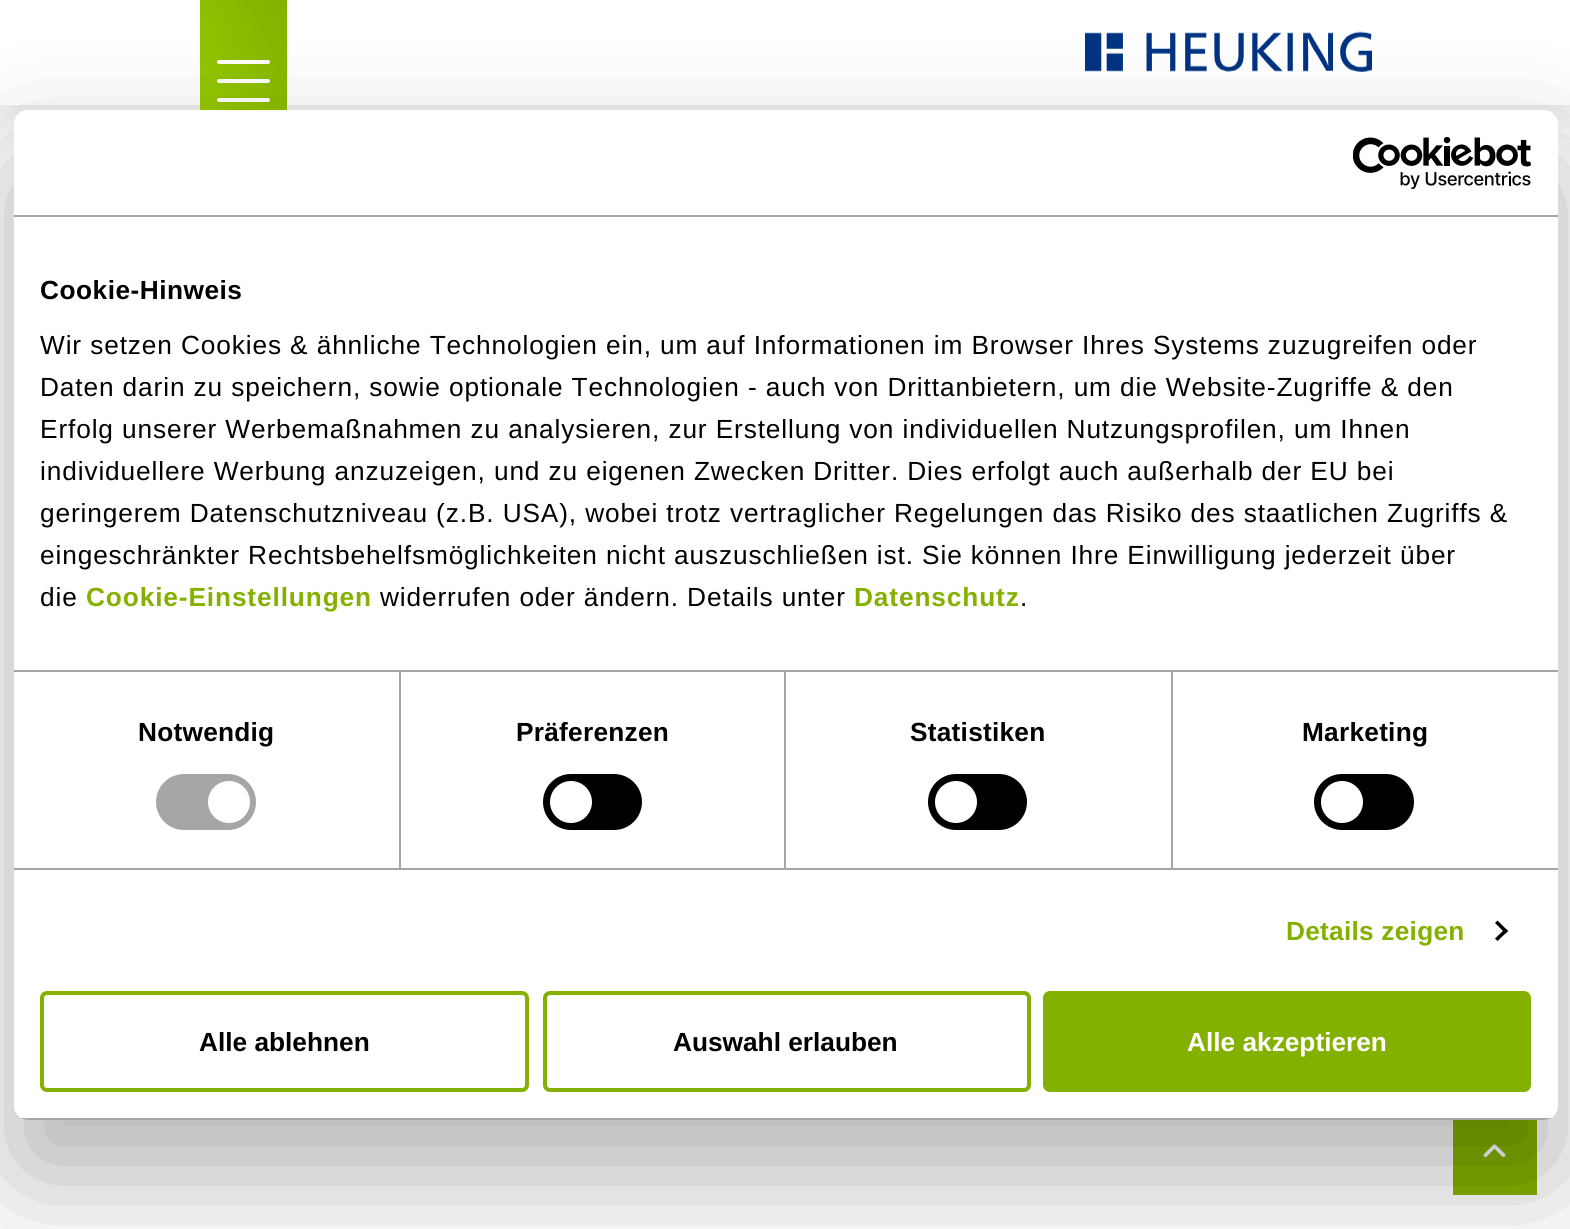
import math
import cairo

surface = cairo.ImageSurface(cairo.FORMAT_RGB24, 1570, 1229)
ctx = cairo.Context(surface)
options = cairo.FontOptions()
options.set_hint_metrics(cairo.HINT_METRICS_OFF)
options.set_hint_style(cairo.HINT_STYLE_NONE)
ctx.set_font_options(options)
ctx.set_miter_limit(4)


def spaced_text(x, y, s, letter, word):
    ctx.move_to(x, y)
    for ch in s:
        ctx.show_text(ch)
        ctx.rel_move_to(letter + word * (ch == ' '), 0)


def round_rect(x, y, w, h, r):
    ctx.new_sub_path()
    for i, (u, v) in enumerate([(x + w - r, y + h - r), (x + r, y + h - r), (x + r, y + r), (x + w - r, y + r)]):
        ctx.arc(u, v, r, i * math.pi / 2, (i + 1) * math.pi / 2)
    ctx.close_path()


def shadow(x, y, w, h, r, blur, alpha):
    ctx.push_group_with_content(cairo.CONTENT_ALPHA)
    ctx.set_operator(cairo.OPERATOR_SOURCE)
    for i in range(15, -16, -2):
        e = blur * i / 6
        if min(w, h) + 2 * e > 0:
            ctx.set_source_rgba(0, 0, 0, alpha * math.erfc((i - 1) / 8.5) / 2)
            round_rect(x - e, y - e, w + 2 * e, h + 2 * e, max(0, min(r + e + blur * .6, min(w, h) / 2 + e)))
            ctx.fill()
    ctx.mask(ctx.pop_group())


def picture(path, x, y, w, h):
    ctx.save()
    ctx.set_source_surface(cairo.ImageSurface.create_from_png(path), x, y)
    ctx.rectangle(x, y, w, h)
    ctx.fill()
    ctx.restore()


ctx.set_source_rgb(1, 1, 1)
ctx.paint()
ctx.set_source_rgb(0, 0, 0)
shadow(0, 0, 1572, 105, 0, 31.5, 0.16)
ctx.set_source_rgb(1, 1, 1)
ctx.rectangle(0, 0, 1570, 105)
ctx.fill()
gradient = cairo.LinearGradient(183, 106, 304, 25)
gradient.add_color_stop_rgba(0, 0.592, 0.796, 0, 1)
gradient.add_color_stop_rgba(0.25, 0.573, 0.769, 0, 1)
gradient.add_color_stop_rgba(0.5, 0.553, 0.745, 0, 1)
gradient.add_color_stop_rgba(0.75, 0.537, 0.718, 0, 1)
gradient.add_color_stop_rgba(1, 0.518, 0.694, 0, 1)
ctx.set_source(gradient)
ctx.rectangle(200, 0, 87, 110)
ctx.fill()
ctx.set_source_rgb(1, 1, 1)
round_rect(217, 60, 53, 4, 2)
ctx.fill()
round_rect(217, 79, 53, 4, 2)
ctx.fill()
round_rect(217, 98, 53, 4, 2)
ctx.fill()
picture("img1.png", 1085, 31, 287, 41)
ctx.set_source_rgb(0.518, 0.694, 0)
ctx.rectangle(1453, 1120, 84, 75)
ctx.fill()
picture("img3.png", 1483, 1144, 23, 13)
ctx.set_source_rgb(0, 0, 0)
shadow(14, 166, 1544, 1010, 14, 59.5, 0.3)
ctx.set_source_rgb(1, 1, 1)
round_rect(14, 110, 1544, 1010, 14)
ctx.fill()
ctx.set_source_rgb(0.651, 0.651, 0.651)
ctx.rectangle(14, 215, 1544, 2)
ctx.fill()
picture("img2.png", 1353, 137, 178, 52)
ctx.rectangle(14, 670, 1544, 2)
ctx.fill()
ctx.select_font_face("Liberation Sans", cairo.FONT_SLANT_NORMAL, cairo.FONT_WEIGHT_BOLD)
ctx.set_font_size(26.25)
ctx.set_source_rgb(0, 0, 0)
spaced_text(40, 299, "Cookie-Hinweis", 0.5, 0)
ctx.select_font_face("Liberation Sans")
spaced_text(40, 354, "Wir setzen Cookies & ähnliche Technologien ein, um auf Informationen im Browser Ihres Systems zuzugreifen oder", 0.88, 0)
spaced_text(40, 396, "Daten darin zu speichern, sowie optionale Technologien - auch von Drittanbietern, um die Website-Zugriffe & den", 0.88, 0)
spaced_text(40, 438, "Erfolg unserer Werbemaßnahmen zu analysieren, zur Erstellung von individuellen Nutzungsprofilen, um Ihnen", 0.88, 0)
spaced_text(40, 480, "individuellere Werbung anzuzeigen, und zu eigenen Zwecken Dritter. Dies erfolgt auch außerhalb der EU bei", 0.88, 0)
spaced_text(40, 522, "geringerem Datenschutzniveau (z.B. USA), wobei trotz vertraglicher Regelungen das Risiko des staatlichen Zugriffs &", 0.88, 0)
spaced_text(40, 564, "eingeschränkter Rechtsbehelfsmöglichkeiten nicht auszuschließen ist. Sie können Ihre Einwilligung jederzeit über", 0.88, 0)
spaced_text(40, 606, "die", 0.88, 0)
ctx.select_font_face("Liberation Sans", cairo.FONT_SLANT_NORMAL, cairo.FONT_WEIGHT_BOLD)
ctx.set_source_rgb(0.518, 0.694, 0)
spaced_text(86, 606, "Cookie-Einstellungen", 0.88, 0)
ctx.select_font_face("Liberation Sans")
ctx.set_source_rgb(0, 0, 0)
spaced_text(380, 606, "widerrufen oder ändern. Details unter", 0.88, 0)
ctx.select_font_face("Liberation Sans", cairo.FONT_SLANT_NORMAL, cairo.FONT_WEIGHT_BOLD)
ctx.set_source_rgb(0.518, 0.694, 0)
spaced_text(854, 606, "Datenschutz", 0.88, 0)
ctx.select_font_face("Liberation Sans")
ctx.set_source_rgb(0, 0, 0)
spaced_text(1020, 606, ".", 0.88, 0)
ctx.set_source_rgb(0.651, 0.651, 0.651)
ctx.rectangle(14, 868, 1544, 2)
ctx.fill()
ctx.rectangle(399, 672, 2, 196)
ctx.fill()
ctx.select_font_face("Liberation Sans", cairo.FONT_SLANT_NORMAL, cairo.FONT_WEIGHT_BOLD)
ctx.set_source_rgb(0, 0, 0)
spaced_text(138, 741, "Notwendig", 0.25, 0)
ctx.set_source_rgb(0.651, 0.651, 0.651)
round_rect(156, 774, 100, 56, 28)
ctx.fill()
ctx.set_source_rgb(1, 1, 1)
ctx.arc(229, 802, 21, 0, 2 * math.pi)
ctx.fill()
ctx.set_source_rgb(0.651, 0.651, 0.651)
ctx.rectangle(784, 672, 2, 196)
ctx.fill()
ctx.set_source_rgb(0, 0, 0)
spaced_text(516, 741, "Präferenzen", 0.25, 0)
round_rect(543, 774, 99, 56, 28)
ctx.fill()
ctx.set_source_rgb(1, 1, 1)
ctx.arc(571, 802, 21, 0, 2 * math.pi)
ctx.fill()
ctx.set_source_rgb(0.651, 0.651, 0.651)
ctx.rectangle(1171, 672, 2, 196)
ctx.fill()
ctx.set_source_rgb(0, 0, 0)
spaced_text(910, 741, "Statistiken", 0.25, 0)
round_rect(928, 774, 99, 56, 28)
ctx.fill()
ctx.set_source_rgb(1, 1, 1)
ctx.arc(956, 802, 21, 0, 2 * math.pi)
ctx.fill()
ctx.set_source_rgb(0, 0, 0)
spaced_text(1302, 741, "Marketing", 0.25, 0)
round_rect(1314, 774, 100, 56, 28)
ctx.fill()
ctx.set_source_rgb(1, 1, 1)
ctx.arc(1342, 802, 21, 0, 2 * math.pi)
ctx.fill()
ctx.set_source_rgb(0.518, 0.694, 0)
spaced_text(1286, 940, "Details zeigen", 0.25, 0)
ctx.set_source_rgb(0, 0, 0)
ctx.new_path()
ctx.move_to(1497.5, 920.5)
ctx.line_to(1508, 931)
ctx.line_to(1505.5, 933.5)
ctx.line_to(1495, 923)
ctx.close_path()
ctx.fill()
ctx.new_path()
ctx.move_to(1505.5, 928.5)
ctx.line_to(1508, 931)
ctx.line_to(1497.5, 941)
ctx.line_to(1495, 938.5)
ctx.close_path()
ctx.fill()
ctx.save()
round_rect(14, 110, 1544, 1010, 14)
ctx.clip()
ctx.set_source_rgb(0.651, 0.651, 0.651)
ctx.rectangle(14, 1118, 1544, 2)
ctx.fill()
ctx.restore()
round_rect(42, 993, 485, 97, 5)
ctx.set_source_rgb(0.518, 0.694, 0)
ctx.set_line_width(4)
ctx.stroke()
ctx.set_source_rgb(0, 0, 0)
ctx.move_to(199, 1051)
ctx.show_text("Alle ablehnen")
round_rect(545, 993, 484, 97, 5)
ctx.set_source_rgb(0.518, 0.694, 0)
ctx.stroke()
ctx.set_source_rgb(0, 0, 0)
ctx.move_to(673, 1051)
ctx.show_text("Auswahl erlauben")
ctx.set_source_rgb(0.518, 0.694, 0)
round_rect(1045, 993, 484, 97, 5)
ctx.fill_preserve()
ctx.stroke()
ctx.set_source_rgb(1, 1, 1)
ctx.move_to(1187, 1051)
ctx.show_text("Alle akzeptieren")
surface.write_to_png("page.png")
